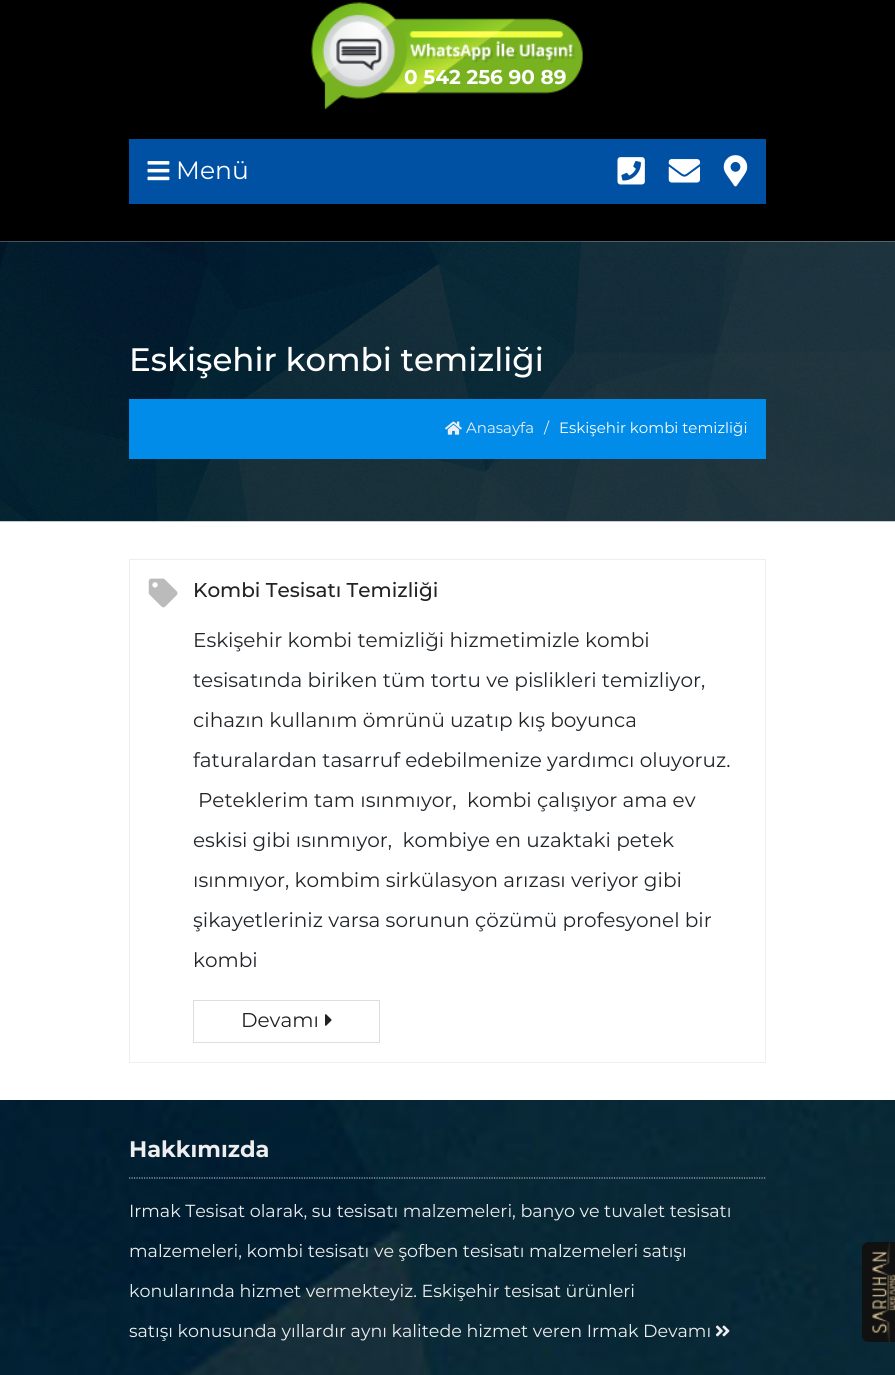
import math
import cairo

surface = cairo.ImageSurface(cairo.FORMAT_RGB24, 895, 1375)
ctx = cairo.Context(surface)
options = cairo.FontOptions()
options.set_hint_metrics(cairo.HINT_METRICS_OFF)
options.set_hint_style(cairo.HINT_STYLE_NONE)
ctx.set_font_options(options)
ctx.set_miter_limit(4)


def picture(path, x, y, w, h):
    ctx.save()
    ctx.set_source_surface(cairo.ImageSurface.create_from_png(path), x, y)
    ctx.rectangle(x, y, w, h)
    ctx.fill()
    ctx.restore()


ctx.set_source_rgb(1, 1, 1)
ctx.paint()
ctx.set_source_rgb(0, 0, 0)
ctx.rectangle(0, 0, 895, 241)
ctx.fill()
picture("img1.png", 311, 2, 272, 108)
ctx.select_font_face("Montserrat", cairo.FONT_SLANT_NORMAL, cairo.FONT_WEIGHT_BOLD)
ctx.set_font_size(20)
ctx.set_source_rgb(1, 1, 1)
ctx.move_to(404, 84)
ctx.show_text("0 542 256 90 89")
ctx.set_source_rgb(0, 0.314, 0.643)
ctx.rectangle(129, 139, 637, 65)
ctx.fill()
picture("img2.png", 147, 161, 23, 20)
ctx.select_font_face("Montserrat")
ctx.set_font_size(25)
ctx.set_source_rgb(1, 1, 1)
ctx.move_to(176, 179)
ctx.show_text("Menü")
picture("img3.png", 617, 157, 28, 28)
picture("img4.png", 668, 159, 32, 24)
picture("img5.png", 723, 155, 25, 32)
picture("img6.png", 0, 241, 895, 281)
ctx.select_font_face("Montserrat Medium")
ctx.set_font_size(32.5)
ctx.move_to(129, 371)
ctx.show_text("Eskişehir kombi temizliği")
ctx.set_source_rgb(0, 0.549, 0.91)
ctx.rectangle(129, 399, 637, 60)
ctx.fill()
picture("img7.png", 445, 421, 17, 14)
ctx.select_font_face("Montserrat")
ctx.set_font_size(15)
ctx.set_source_rgb(0.933, 0.933, 0.933)
ctx.move_to(466, 433)
ctx.show_text("Anasayfa")
ctx.move_to(544, 433)
ctx.show_text("/")
ctx.set_source_rgb(1, 1, 1)
ctx.move_to(559, 433)
ctx.show_text("Eskişehir kombi temizliği")
ctx.rectangle(129.5, 559.5, 636, 503)
ctx.set_source_rgb(0.933, 0.933, 0.933)
ctx.set_line_width(1)
ctx.stroke()
picture("img8.png", 148, 578, 30, 30)
ctx.select_font_face("Montserrat Medium")
ctx.set_font_size(20)
ctx.set_source_rgb(0.133, 0.133, 0.133)
ctx.move_to(193, 597)
ctx.show_text("Kombi Tesisatı Temizliği")
ctx.select_font_face("Montserrat")
ctx.set_source_rgb(0.129, 0.145, 0.161)
ctx.move_to(193, 647)
ctx.show_text("Eskişehir kombi temizliği hizmetimizle kombi")
ctx.move_to(193, 687)
ctx.show_text("tesisatında biriken tüm tortu ve pislikleri temizliyor,")
ctx.move_to(193, 727)
ctx.show_text("cihazın kullanım ömrünü uzatıp kış boyunca")
ctx.move_to(193, 767)
ctx.show_text("faturalardan tasarruf edebilmenize yardımcı oluyoruz.")
ctx.move_to(198, 807)
ctx.show_text("Peteklerim tam ısınmıyor,  kombi çalışıyor ama ev")
ctx.move_to(193, 847)
ctx.show_text("eskisi gibi ısınmıyor,  kombiye en uzaktaki petek")
ctx.move_to(193, 887)
ctx.show_text("ısınmıyor, kombim sirkülasyon arızası veriyor gibi")
ctx.move_to(193, 927)
ctx.show_text("şikayetleriniz varsa sorunun çözümü profesyonel bir")
ctx.move_to(193, 967)
ctx.show_text("kombi")
ctx.rectangle(193.5, 1000.5, 186, 42)
ctx.set_source_rgb(0.867, 0.867, 0.867)
ctx.stroke()
ctx.set_source_rgb(0.133, 0.133, 0.133)
ctx.move_to(241, 1027)
ctx.show_text("Devamı")
picture("img9.png", 325, 1014, 7, 12)
picture("img10.png", 0, 1100, 895, 275)
ctx.new_path()
ctx.move_to(129, 1178)
ctx.line_to(766, 1178)
ctx.set_source_rgb(0.667, 0.667, 0.667)
ctx.set_line_width(1.2)
ctx.set_dash([1.25, 1.25])
ctx.stroke()
ctx.select_font_face("Montserrat", cairo.FONT_SLANT_NORMAL, cairo.FONT_WEIGHT_BOLD)
ctx.set_font_size(22.5)
ctx.set_source_rgb(0.933, 0.933, 0.933)
ctx.move_to(129, 1157)
ctx.show_text("Hakkımızda")
ctx.select_font_face("Montserrat")
ctx.set_font_size(17.5)
ctx.move_to(129, 1217)
ctx.show_text("Irmak Tesisat olarak, su tesisatı malzemeleri, banyo ve tuvalet tesisatı")
ctx.move_to(129, 1257)
ctx.show_text("malzemeleri, kombi tesisatı ve şofben tesisatı malzemeleri satışı")
ctx.move_to(129, 1297)
ctx.show_text("konularında hizmet vermekteyiz. Eskişehir tesisat ürünleri")
ctx.move_to(129, 1337)
ctx.show_text("satışı konusunda yıllardır aynı kalitede hizmet veren Irmak Devamı")
picture("img11.png", 715, 1325, 15, 12)
ctx.set_source_rgb(0.067, 0.067, 0.067)
ctx.new_path()
ctx.move_to(862, 1336)
ctx.line_to(862, 1249)
ctx.curve_to(862, 1245, 865, 1242, 869, 1242)
ctx.line_to(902, 1242)
ctx.line_to(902, 1342)
ctx.line_to(869, 1342)
ctx.curve_to(865, 1342, 862, 1340, 862, 1336)
ctx.close_path()
ctx.fill()
picture("img12.png", 872, 1242, 23, 101)
surface.write_to_png("page.png")
